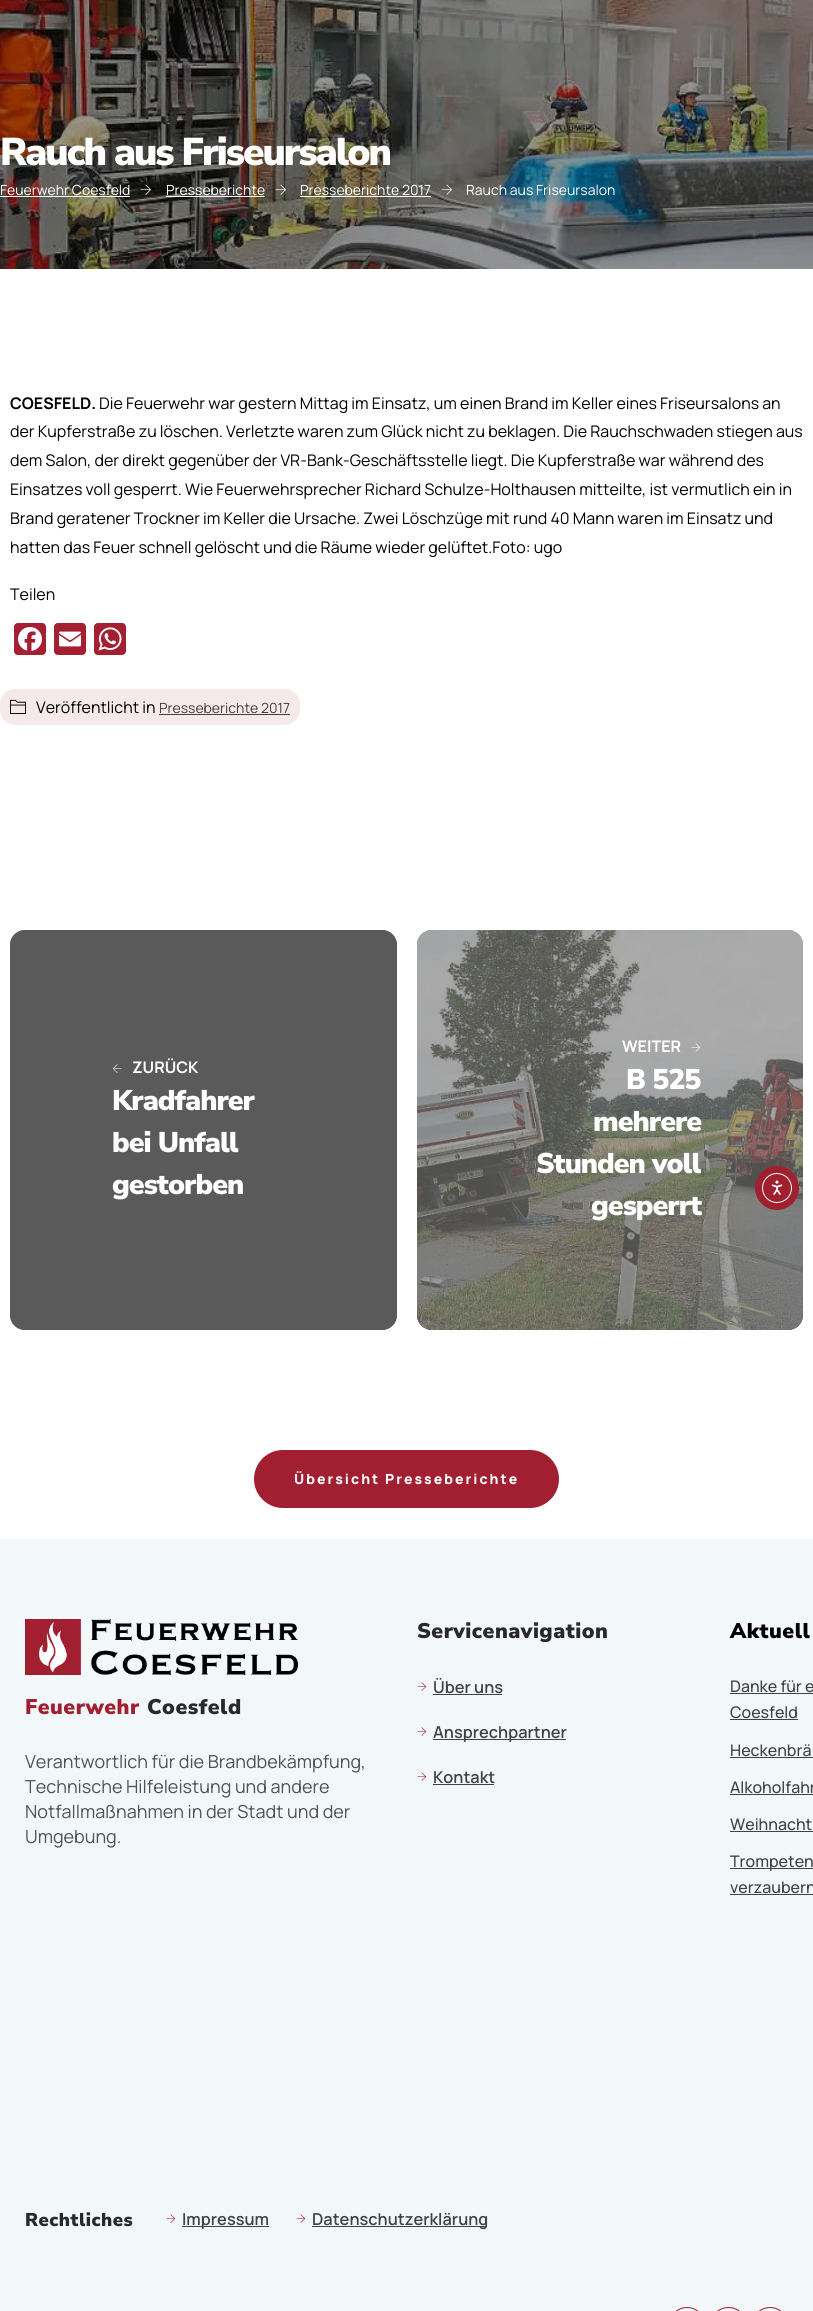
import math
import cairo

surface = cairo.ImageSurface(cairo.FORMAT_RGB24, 813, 2311)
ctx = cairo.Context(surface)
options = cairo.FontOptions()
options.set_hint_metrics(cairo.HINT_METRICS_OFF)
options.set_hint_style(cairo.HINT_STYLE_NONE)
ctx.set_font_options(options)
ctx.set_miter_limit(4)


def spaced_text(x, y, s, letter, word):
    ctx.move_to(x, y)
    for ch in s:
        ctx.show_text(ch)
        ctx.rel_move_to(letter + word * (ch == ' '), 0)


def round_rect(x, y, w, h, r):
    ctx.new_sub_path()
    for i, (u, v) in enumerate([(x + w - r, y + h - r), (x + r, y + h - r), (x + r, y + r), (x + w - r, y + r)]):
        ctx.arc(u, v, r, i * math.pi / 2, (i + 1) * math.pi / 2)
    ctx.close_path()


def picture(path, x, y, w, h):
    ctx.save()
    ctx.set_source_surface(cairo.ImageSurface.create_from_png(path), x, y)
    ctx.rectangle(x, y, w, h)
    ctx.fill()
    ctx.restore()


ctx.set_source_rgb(1, 1, 1)
ctx.paint()
picture("img1.png", 0, 0, 813, 269)
ctx.select_font_face("Nunito Sans ExtraLight")
ctx.set_font_size(38.75)
ctx.set_source_rgb(1, 1, 1)
spaced_text(0, 165, "Rauch aus Friseursalon", -2, 0)
ctx.select_font_face("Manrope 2 ExtraLight")
ctx.set_font_size(14)
ctx.move_to(0, 195)
ctx.show_text("Feuerwehr Coesfeld")
ctx.rectangle(0, 196, 130, 1)
ctx.fill()
picture("img2.png", 140, 184, 11, 11)
ctx.move_to(166, 195)
ctx.show_text("Presseberichte")
ctx.rectangle(166, 196, 99, 1)
ctx.fill()
picture("img3.png", 275, 184, 11, 11)
ctx.move_to(300, 195)
ctx.show_text("Presseberichte 2017")
ctx.rectangle(300, 196, 131, 1)
ctx.fill()
picture("img4.png", 441, 184, 11, 11)
ctx.move_to(466, 195)
ctx.show_text("Rauch aus Friseursalon")
ctx.select_font_face("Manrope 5 ExtraLight")
ctx.set_font_size(16)
ctx.set_source_rgb(0, 0, 0)
ctx.move_to(10, 409)
ctx.show_text("COESFELD.")
ctx.select_font_face("Manrope 2 ExtraLight")
ctx.move_to(99, 409)
ctx.show_text("Die Feuerwehr war gestern Mittag im Einsatz, um einen Brand im Keller eines Friseursalons an")
ctx.move_to(10, 437)
ctx.show_text("der Kupferstraße zu löschen. Verletzte waren zum Glück nicht zu beklagen. Die Rauchschwaden stiegen aus")
ctx.move_to(10, 466)
ctx.show_text("dem Salon, der direkt gegenüber der VR-Bank-Geschäftsstelle liegt. Die Kupferstraße war während des")
ctx.move_to(10, 495)
ctx.show_text("Einsatzes voll gesperrt. Wie Feuerwehrsprecher Richard Schulze-Holthausen mitteilte, ist vermutlich ein in")
ctx.move_to(10, 524)
ctx.show_text("Brand geratener Trockner im Keller die Ursache. Zwei Löschzüge mit rund 40 Mann waren im Einsatz und")
ctx.move_to(10, 553)
ctx.show_text("hatten das Feuer schnell gelöscht und die Räume wieder gelüftet.Foto: ugo")
ctx.move_to(10, 600)
ctx.show_text("Teilen")
ctx.set_source_rgb(0.639, 0.122, 0.192)
round_rect(14, 623, 32, 32, 4)
ctx.fill()
picture("img5.png", 18, 627, 24, 24)
round_rect(54, 623, 32, 32, 4)
ctx.fill()
picture("img6.png", 59, 631, 22, 16)
round_rect(94, 623, 32, 32, 4)
ctx.fill()
picture("img7.png", 98, 627, 24, 24)
ctx.set_source_rgba(0.631, 0.122, 0.188, 0.1)
round_rect(0, 689, 300, 36, 15)
ctx.fill()
picture("img8.png", 10, 699, 16, 15)
ctx.set_source_rgb(0, 0, 0)
ctx.move_to(36, 713)
ctx.show_text("Veröffentlicht in")
ctx.set_font_size(14)
ctx.set_source_rgb(0.259, 0.259, 0.259)
ctx.move_to(159, 713)
ctx.show_text("Presseberichte 2017")
ctx.rectangle(159, 714, 131, 1)
ctx.fill()
ctx.set_source_rgb(0.161, 0.161, 0.161)
round_rect(10, 930, 387, 400, 15)
ctx.fill()
ctx.set_source_rgba(0.467, 0.467, 0.467, 0.62)
round_rect(10, 930, 387, 400, 15)
ctx.fill()
picture("img9.png", 112, 1064, 10, 9)
ctx.select_font_face("Manrope 5 ExtraLight")
ctx.set_font_size(16)
ctx.set_source_rgb(1, 1, 1)
ctx.move_to(132, 1073)
ctx.show_text("ZURÜCK")
ctx.select_font_face("Nunito Sans ExtraLight")
ctx.set_font_size(28.5)
spaced_text(112, 1110, "Kradfahrer", -1, 0)
spaced_text(112, 1152, "bei Unfall", -1, 0)
spaced_text(112, 1194, "gestorben", -1, 0)
ctx.set_source_rgb(0.161, 0.161, 0.161)
round_rect(417, 930, 386, 400, 15)
ctx.fill()
picture("img10.png", 417, 930, 386, 400)
ctx.set_source_rgba(0.467, 0.467, 0.467, 0.62)
round_rect(417, 930, 386, 400, 15)
ctx.fill()
ctx.select_font_face("Manrope 5 ExtraLight")
ctx.set_font_size(16)
ctx.set_source_rgb(1, 1, 1)
ctx.move_to(622, 1052)
ctx.show_text("WEITER")
picture("img11.png", 691, 1043, 10, 9)
ctx.select_font_face("Nunito Sans ExtraLight")
ctx.set_font_size(28.5)
spaced_text(626, 1089, "B 525", -1, 0)
spaced_text(593, 1131, "mehrere", -1, 0)
spaced_text(536, 1173, "Stunden voll", -1, 0)
spaced_text(591, 1215, "gesperrt", -1, 0)
ctx.set_source_rgb(0.631, 0.122, 0.188)
round_rect(254, 1450, 305, 58, 29)
ctx.fill()
ctx.select_font_face("Manrope ExtraLight")
ctx.set_font_size(14)
ctx.set_source_rgb(1, 1, 1)
spaced_text(294, 1484, "Übersicht Presseberichte", 2, 0)
ctx.set_source_rgb(0.949, 0.965, 0.976)
ctx.rectangle(0, 1539, 813, 772)
ctx.fill()
picture("img12.png", 25, 1619, 273, 56)
ctx.select_font_face("Nunito Sans ExtraLight")
ctx.set_font_size(21.25)
ctx.set_source_rgb(0.631, 0.122, 0.188)
spaced_text(25, 1714, "Feuerwehr", 0.5, 0)
ctx.set_source_rgb(0.161, 0.161, 0.161)
spaced_text(147, 1714, "Coesfeld", 0.5, 0)
ctx.select_font_face("Manrope 2 ExtraLight")
ctx.set_font_size(18)
ctx.set_source_rgb(0.322, 0.322, 0.322)
ctx.move_to(25, 1768)
ctx.show_text("Verantwortlich für die Brandbekämpfung,")
ctx.move_to(25, 1793)
ctx.show_text("Technische Hilfeleistung und andere")
ctx.move_to(25, 1818)
ctx.show_text("Notfallmaßnahmen in der Stadt und der")
ctx.move_to(25, 1843)
ctx.show_text("Umgebung.")
ctx.select_font_face("Nunito Sans ExtraLight")
ctx.set_font_size(21.25)
ctx.set_source_rgb(0.161, 0.161, 0.161)
spaced_text(417, 1638, "Servicenavigation", 0.5, 0)
picture("img13.png", 417, 1682, 10, 9)
ctx.select_font_face("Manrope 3 ExtraLight")
ctx.set_font_size(16.4)
ctx.set_source_rgb(0.259, 0.259, 0.259)
ctx.move_to(433, 1693)
ctx.show_text("Über uns")
ctx.rectangle(433, 1694, 69, 1)
ctx.fill()
picture("img13.png", 417, 1727, 10, 9)
ctx.rectangle(433, 1739, 133, 1)
ctx.fill()
ctx.move_to(433, 1738)
ctx.show_text("Ansprechpartner")
picture("img13.png", 417, 1772, 10, 9)
ctx.move_to(433, 1783)
ctx.show_text("Kontakt")
ctx.rectangle(433, 1784, 61, 1)
ctx.fill()
ctx.select_font_face("Nunito Sans ExtraLight")
ctx.set_font_size(21.25)
ctx.set_source_rgb(0, 0, 0)
spaced_text(730, 1638, "Aktuell", 0.5, 0)
ctx.select_font_face("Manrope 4 ExtraLight")
ctx.set_font_size(16)
ctx.set_source_rgb(0.259, 0.259, 0.259)
ctx.move_to(730, 1692)
ctx.show_text("Danke für e")
ctx.rectangle(730, 1693, 83, 1)
ctx.fill()
ctx.move_to(730, 1718)
ctx.show_text("Coesfeld")
ctx.rectangle(730, 1719, 68, 1)
ctx.fill()
ctx.move_to(730, 1756)
ctx.show_text("Heckenbrä")
ctx.rectangle(730, 1757, 83, 1)
ctx.fill()
ctx.move_to(730, 1793)
ctx.show_text("Alkoholfahr")
ctx.rectangle(730, 1794, 83, 1)
ctx.fill()
ctx.move_to(730, 1830)
ctx.show_text("Weihnacht")
ctx.rectangle(730, 1831, 83, 1)
ctx.fill()
ctx.rectangle(730, 1868, 83, 1)
ctx.fill()
ctx.move_to(730, 1867)
ctx.show_text("Trompeten")
ctx.move_to(730, 1893)
ctx.show_text("verzaubern")
ctx.rectangle(730, 1894, 83, 1)
ctx.fill()
ctx.select_font_face("Nunito Sans ExtraLight")
ctx.set_font_size(18.5)
ctx.set_source_rgb(0.161, 0.161, 0.161)
spaced_text(25, 2226, "Rechtliches", 0.5, 0)
picture("img13.png", 166, 2214, 10, 9)
ctx.set_source_rgb(0.259, 0.259, 0.259)
ctx.rectangle(182, 2226, 87, 1)
ctx.fill()
ctx.select_font_face("Manrope 3 ExtraLight")
ctx.set_font_size(16.4)
ctx.move_to(182, 2225)
ctx.show_text("Impressum")
picture("img13.png", 296, 2214, 10, 9)
ctx.rectangle(312, 2226, 175, 1)
ctx.fill()
ctx.move_to(312, 2225)
ctx.show_text("Datenschutzerklärung")
round_rect(669.5, 2307.5, 35, 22, 17.5)
ctx.set_source_rgb(0.631, 0.122, 0.188)
ctx.set_line_width(1)
ctx.stroke()
round_rect(710.5, 2307.5, 36, 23, 18)
ctx.stroke()
round_rect(752.5, 2307.5, 35, 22, 17.5)
ctx.stroke()
ctx.set_source_rgb(0.631, 0.125, 0.188)
ctx.arc(777, 1188, 22, 0, 2 * math.pi)
ctx.fill()
ctx.arc(777, 1188, 14.5, 0, 2 * math.pi)
ctx.set_source_rgb(1, 1, 1)
ctx.stroke()
picture("img14.png", 771, 1180, 12, 15)
surface.write_to_png("page.png")
